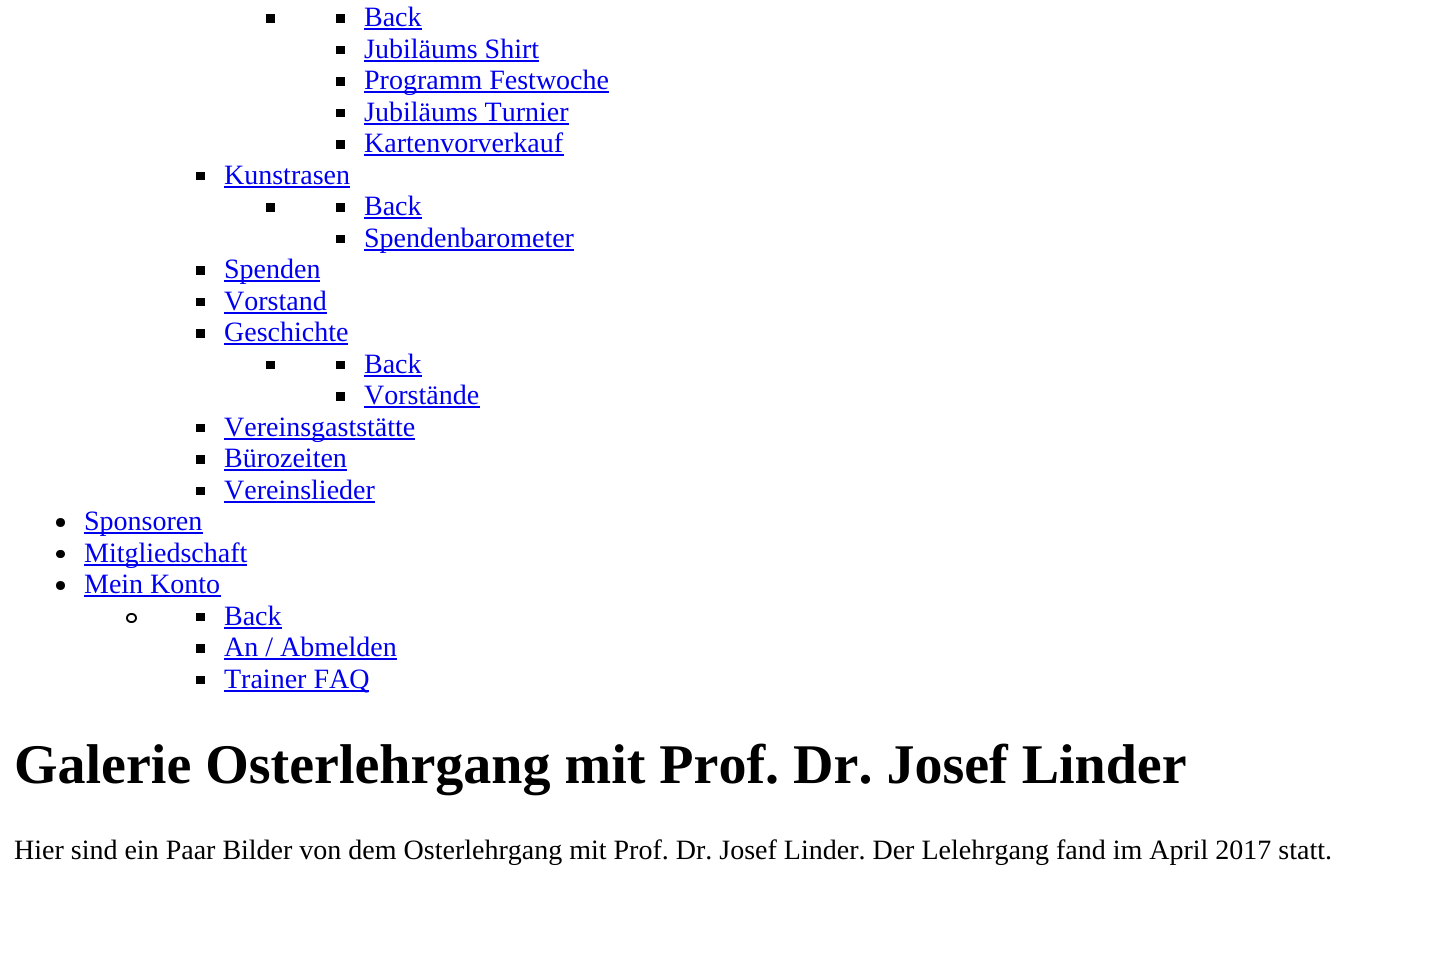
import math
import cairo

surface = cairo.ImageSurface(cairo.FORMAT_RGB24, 1451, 969)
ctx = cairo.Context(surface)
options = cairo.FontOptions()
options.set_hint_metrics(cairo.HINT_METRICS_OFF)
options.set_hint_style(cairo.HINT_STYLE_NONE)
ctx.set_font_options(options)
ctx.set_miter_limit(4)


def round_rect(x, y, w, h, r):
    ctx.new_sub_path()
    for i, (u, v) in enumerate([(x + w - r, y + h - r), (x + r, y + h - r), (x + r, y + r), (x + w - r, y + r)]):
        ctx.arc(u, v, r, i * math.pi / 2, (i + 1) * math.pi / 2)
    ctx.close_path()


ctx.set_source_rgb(1, 1, 1)
ctx.paint()
ctx.set_source_rgb(0, 0, 0)
ctx.rectangle(266, 14, 9, 9)
ctx.fill()
ctx.rectangle(336, 14, 9, 9)
ctx.fill()
ctx.select_font_face("Liberation Serif")
ctx.set_font_size(28)
ctx.set_source_rgb(0, 0, 0.933)
ctx.move_to(364, 26)
ctx.show_text("Back")
ctx.rectangle(364, 28, 58, 2)
ctx.fill()
ctx.set_source_rgb(0, 0, 0)
ctx.rectangle(336, 46, 9, 8)
ctx.fill()
ctx.set_source_rgb(0, 0, 0.933)
ctx.move_to(364, 58)
ctx.show_text("Jubiläums Shirt")
ctx.rectangle(364, 60, 175, 2)
ctx.fill()
ctx.set_source_rgb(0, 0, 0)
ctx.rectangle(336, 77, 9, 9)
ctx.fill()
ctx.set_source_rgb(0, 0, 0.933)
ctx.rectangle(364, 91, 245, 2)
ctx.fill()
ctx.move_to(364, 89)
ctx.show_text("Programm Festwoche")
ctx.set_source_rgb(0, 0, 0)
ctx.rectangle(336, 109, 9, 8)
ctx.fill()
ctx.set_source_rgb(0, 0, 0.933)
ctx.move_to(364, 121)
ctx.show_text("Jubiläums Turnier")
ctx.rectangle(364, 123, 205, 2)
ctx.fill()
ctx.set_source_rgb(0, 0, 0)
ctx.rectangle(336, 140, 9, 9)
ctx.fill()
ctx.set_source_rgb(0, 0, 0.933)
ctx.move_to(364, 152)
ctx.show_text("Kartenvorverkauf")
ctx.rectangle(364, 154, 200, 2)
ctx.fill()
ctx.set_source_rgb(0, 0, 0)
ctx.rectangle(196, 172, 9, 8)
ctx.fill()
ctx.set_source_rgb(0, 0, 0.933)
ctx.move_to(224, 184)
ctx.show_text("Kunstrasen")
ctx.rectangle(224, 186, 126, 2)
ctx.fill()
ctx.set_source_rgb(0, 0, 0)
ctx.rectangle(266, 203, 9, 9)
ctx.fill()
ctx.rectangle(336, 203, 9, 9)
ctx.fill()
ctx.set_source_rgb(0, 0, 0.933)
ctx.move_to(364, 215)
ctx.show_text("Back")
ctx.rectangle(364, 217, 58, 2)
ctx.fill()
ctx.set_source_rgb(0, 0, 0)
ctx.rectangle(336, 235, 9, 8)
ctx.fill()
ctx.set_source_rgb(0, 0, 0.933)
ctx.rectangle(364, 249, 210, 2)
ctx.fill()
ctx.move_to(364, 247)
ctx.show_text("Spendenbarometer")
ctx.set_source_rgb(0, 0, 0)
ctx.rectangle(196, 266, 9, 9)
ctx.fill()
ctx.set_source_rgb(0, 0, 0.933)
ctx.rectangle(224, 280, 96, 2)
ctx.fill()
ctx.move_to(224, 278)
ctx.show_text("Spenden")
ctx.set_source_rgb(0, 0, 0)
ctx.rectangle(196, 298, 9, 8)
ctx.fill()
ctx.set_source_rgb(0, 0, 0.933)
ctx.move_to(224, 310)
ctx.show_text("Vorstand")
ctx.rectangle(224, 312, 103, 2)
ctx.fill()
ctx.set_source_rgb(0, 0, 0)
ctx.rectangle(196, 329, 9, 9)
ctx.fill()
ctx.set_source_rgb(0, 0, 0.933)
ctx.move_to(224, 341)
ctx.show_text("Geschichte")
ctx.rectangle(224, 343, 124, 2)
ctx.fill()
ctx.set_source_rgb(0, 0, 0)
ctx.rectangle(266, 361, 9, 8)
ctx.fill()
ctx.rectangle(336, 361, 9, 8)
ctx.fill()
ctx.set_source_rgb(0, 0, 0.933)
ctx.move_to(364, 373)
ctx.show_text("Back")
ctx.rectangle(364, 375, 58, 2)
ctx.fill()
ctx.set_source_rgb(0, 0, 0)
ctx.rectangle(336, 392, 9, 9)
ctx.fill()
ctx.set_source_rgb(0, 0, 0.933)
ctx.move_to(364, 404)
ctx.show_text("Vorstände")
ctx.rectangle(364, 406, 116, 2)
ctx.fill()
ctx.set_source_rgb(0, 0, 0)
ctx.rectangle(196, 424, 9, 8)
ctx.fill()
ctx.set_source_rgb(0, 0, 0.933)
ctx.rectangle(224, 438, 191, 2)
ctx.fill()
ctx.move_to(224, 436)
ctx.show_text("Vereinsgaststätte")
ctx.set_source_rgb(0, 0, 0)
ctx.rectangle(196, 455, 9, 9)
ctx.fill()
ctx.set_source_rgb(0, 0, 0.933)
ctx.move_to(224, 467)
ctx.show_text("Bürozeiten")
ctx.rectangle(224, 469, 123, 2)
ctx.fill()
ctx.set_source_rgb(0, 0, 0)
ctx.rectangle(196, 487, 9, 8)
ctx.fill()
ctx.set_source_rgb(0, 0, 0.933)
ctx.move_to(224, 499)
ctx.show_text("Vereinslieder")
ctx.rectangle(224, 501, 151, 2)
ctx.fill()
ctx.set_source_rgb(0, 0, 0)
ctx.arc(60.5, 522.5, 4.5, 0, 2 * math.pi)
ctx.fill()
ctx.set_source_rgb(0, 0, 0.933)
ctx.rectangle(84, 532, 119, 2)
ctx.fill()
ctx.move_to(84, 530)
ctx.show_text("Sponsoren")
ctx.set_source_rgb(0, 0, 0)
round_rect(56, 550, 9, 8, 4)
ctx.fill()
ctx.set_source_rgb(0, 0, 0.933)
ctx.rectangle(84, 564, 163, 2)
ctx.fill()
ctx.move_to(84, 562)
ctx.show_text("Mitgliedschaft")
ctx.set_source_rgb(0, 0, 0)
ctx.new_path()
ctx.arc(60.5, 585.5, 4.5, 0, 2 * math.pi)
ctx.fill()
ctx.set_source_rgb(0, 0, 0.933)
ctx.move_to(84, 593)
ctx.show_text("Mein Konto")
ctx.rectangle(84, 595, 137, 2)
ctx.fill()
round_rect(127, 614, 9, 8, 4)
ctx.set_source_rgb(0, 0, 0)
ctx.stroke()
ctx.rectangle(196, 613, 9, 8)
ctx.fill()
ctx.set_source_rgb(0, 0, 0.933)
ctx.move_to(224, 625)
ctx.show_text("Back")
ctx.rectangle(224, 627, 58, 2)
ctx.fill()
ctx.set_source_rgb(0, 0, 0)
ctx.rectangle(196, 644, 9, 9)
ctx.fill()
ctx.set_source_rgb(0, 0, 0.933)
ctx.move_to(224, 656)
ctx.show_text("An / Abmelden")
ctx.rectangle(224, 658, 173, 2)
ctx.fill()
ctx.set_source_rgb(0, 0, 0)
ctx.rectangle(196, 676, 9, 8)
ctx.fill()
ctx.set_source_rgb(0, 0, 0.933)
ctx.rectangle(224, 690, 145, 2)
ctx.fill()
ctx.move_to(224, 688)
ctx.show_text("Trainer FAQ")
ctx.select_font_face("Liberation Serif", cairo.FONT_SLANT_NORMAL, cairo.FONT_WEIGHT_BOLD)
ctx.set_font_size(56)
ctx.set_source_rgb(0, 0, 0)
ctx.move_to(14, 783)
ctx.show_text("Galerie Osterlehrgang mit Prof. Dr. Josef Linder")
ctx.select_font_face("Liberation Serif")
ctx.set_font_size(28)
ctx.move_to(14, 859)
ctx.show_text("Hier sind ein Paar Bilder von dem Osterlehrgang mit Prof. Dr. Josef Linder. Der Lelehrgang fand im April 2017 statt.")
surface.write_to_png("page.png")
